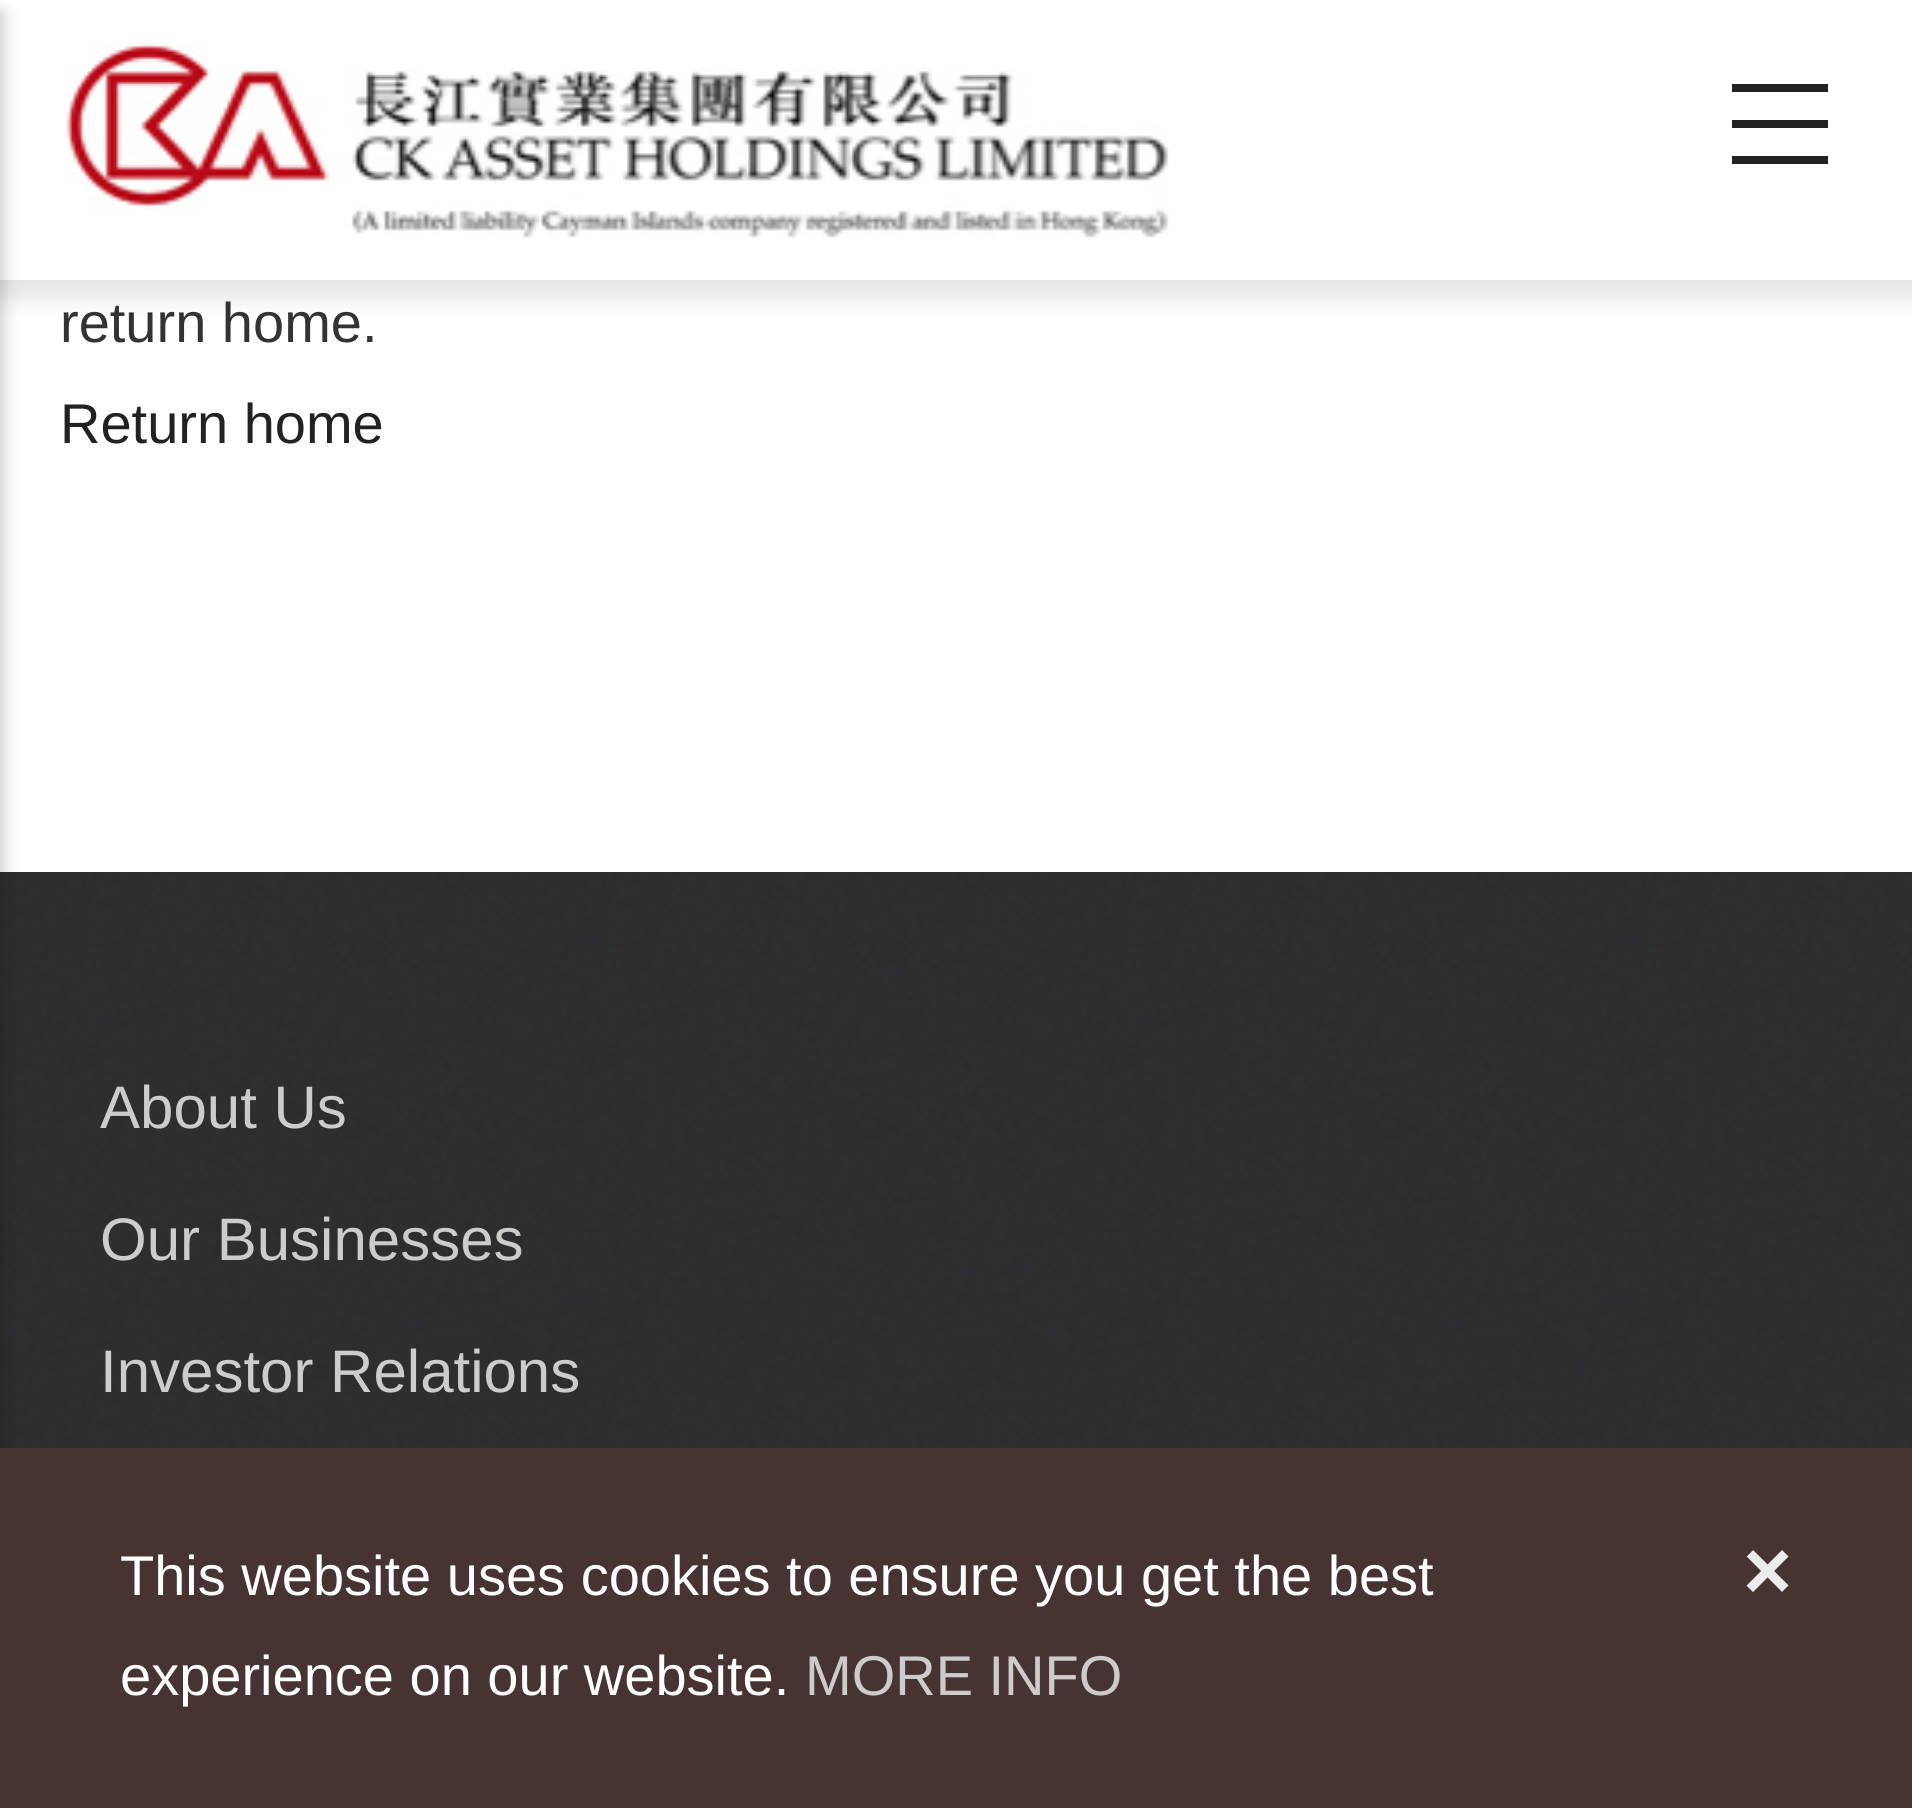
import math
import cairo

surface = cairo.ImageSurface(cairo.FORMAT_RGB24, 1912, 1808)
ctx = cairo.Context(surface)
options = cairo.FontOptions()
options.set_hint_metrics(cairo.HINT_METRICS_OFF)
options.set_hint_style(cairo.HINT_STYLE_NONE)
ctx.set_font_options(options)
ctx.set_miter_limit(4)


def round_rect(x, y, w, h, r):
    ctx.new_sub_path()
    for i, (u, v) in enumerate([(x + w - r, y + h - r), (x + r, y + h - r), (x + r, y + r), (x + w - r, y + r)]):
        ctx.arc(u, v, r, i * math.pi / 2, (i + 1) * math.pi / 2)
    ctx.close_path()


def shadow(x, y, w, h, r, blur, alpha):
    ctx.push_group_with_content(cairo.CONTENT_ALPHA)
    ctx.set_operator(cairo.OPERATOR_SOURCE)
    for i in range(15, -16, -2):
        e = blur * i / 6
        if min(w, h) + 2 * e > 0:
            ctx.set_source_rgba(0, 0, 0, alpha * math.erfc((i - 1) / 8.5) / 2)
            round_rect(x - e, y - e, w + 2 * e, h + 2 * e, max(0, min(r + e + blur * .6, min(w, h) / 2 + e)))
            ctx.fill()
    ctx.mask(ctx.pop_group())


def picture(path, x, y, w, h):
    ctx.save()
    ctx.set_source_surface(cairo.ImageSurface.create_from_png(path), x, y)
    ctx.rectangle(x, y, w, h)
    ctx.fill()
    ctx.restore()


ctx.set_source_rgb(1, 1, 1)
ctx.paint()
ctx.set_source_rgb(0, 0, 0)
shadow(-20, -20, 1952, 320, 0, 10, 0.1)
ctx.set_source_rgb(1, 1, 1)
ctx.rectangle(0, 0, 1912, 280)
ctx.fill()
picture("img2.png", 0, 872, 1912, 576)
ctx.set_source_rgb(0, 0, 0)
shadow(-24, 12, 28, 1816, 0, 8, 0.2)
ctx.set_source_rgb(0.133, 0.133, 0.133)
ctx.rectangle(1732, 84, 96, 8)
ctx.fill()
ctx.rectangle(1732, 120, 96, 8)
ctx.fill()
ctx.rectangle(1732, 156, 96, 8)
ctx.fill()
picture("img1.png", 66, 43, 1103, 195)
ctx.select_font_face("Liberation Sans")
ctx.set_font_size(56)
ctx.set_source_rgb(0.2, 0.2, 0.2)
ctx.move_to(60, 342)
ctx.show_text("return home.")
ctx.set_source_rgb(0.133, 0.133, 0.133)
ctx.move_to(60, 443)
ctx.show_text("Return home")
ctx.set_font_size(60)
ctx.set_source_rgb(0.8, 0.8, 0.8)
ctx.move_to(100, 1128)
ctx.show_text("About Us")
ctx.move_to(100, 1260)
ctx.show_text("Our Businesses")
ctx.move_to(100, 1392)
ctx.show_text("Investor Relations")
ctx.set_source_rgb(0.282, 0.2, 0.2)
ctx.rectangle(0, 1448, 1912, 360)
ctx.fill()
ctx.set_font_size(56)
ctx.set_source_rgb(1, 1, 1)
ctx.move_to(120, 1595)
ctx.show_text("This website uses cookies to ensure you get the best")
ctx.move_to(120, 1695)
ctx.show_text("experience on our website.")
ctx.set_source_rgb(0.8, 0.8, 0.8)
ctx.move_to(805, 1695)
ctx.show_text("MORE INFO")
ctx.select_font_face("Liberation Sans", cairo.FONT_SLANT_NORMAL, cairo.FONT_WEIGHT_BOLD)
ctx.set_font_size(84)
ctx.set_source_rgb(0.929, 0.922, 0.922)
ctx.move_to(1743, 1599)
ctx.show_text("×")
surface.write_to_png("page.png")
